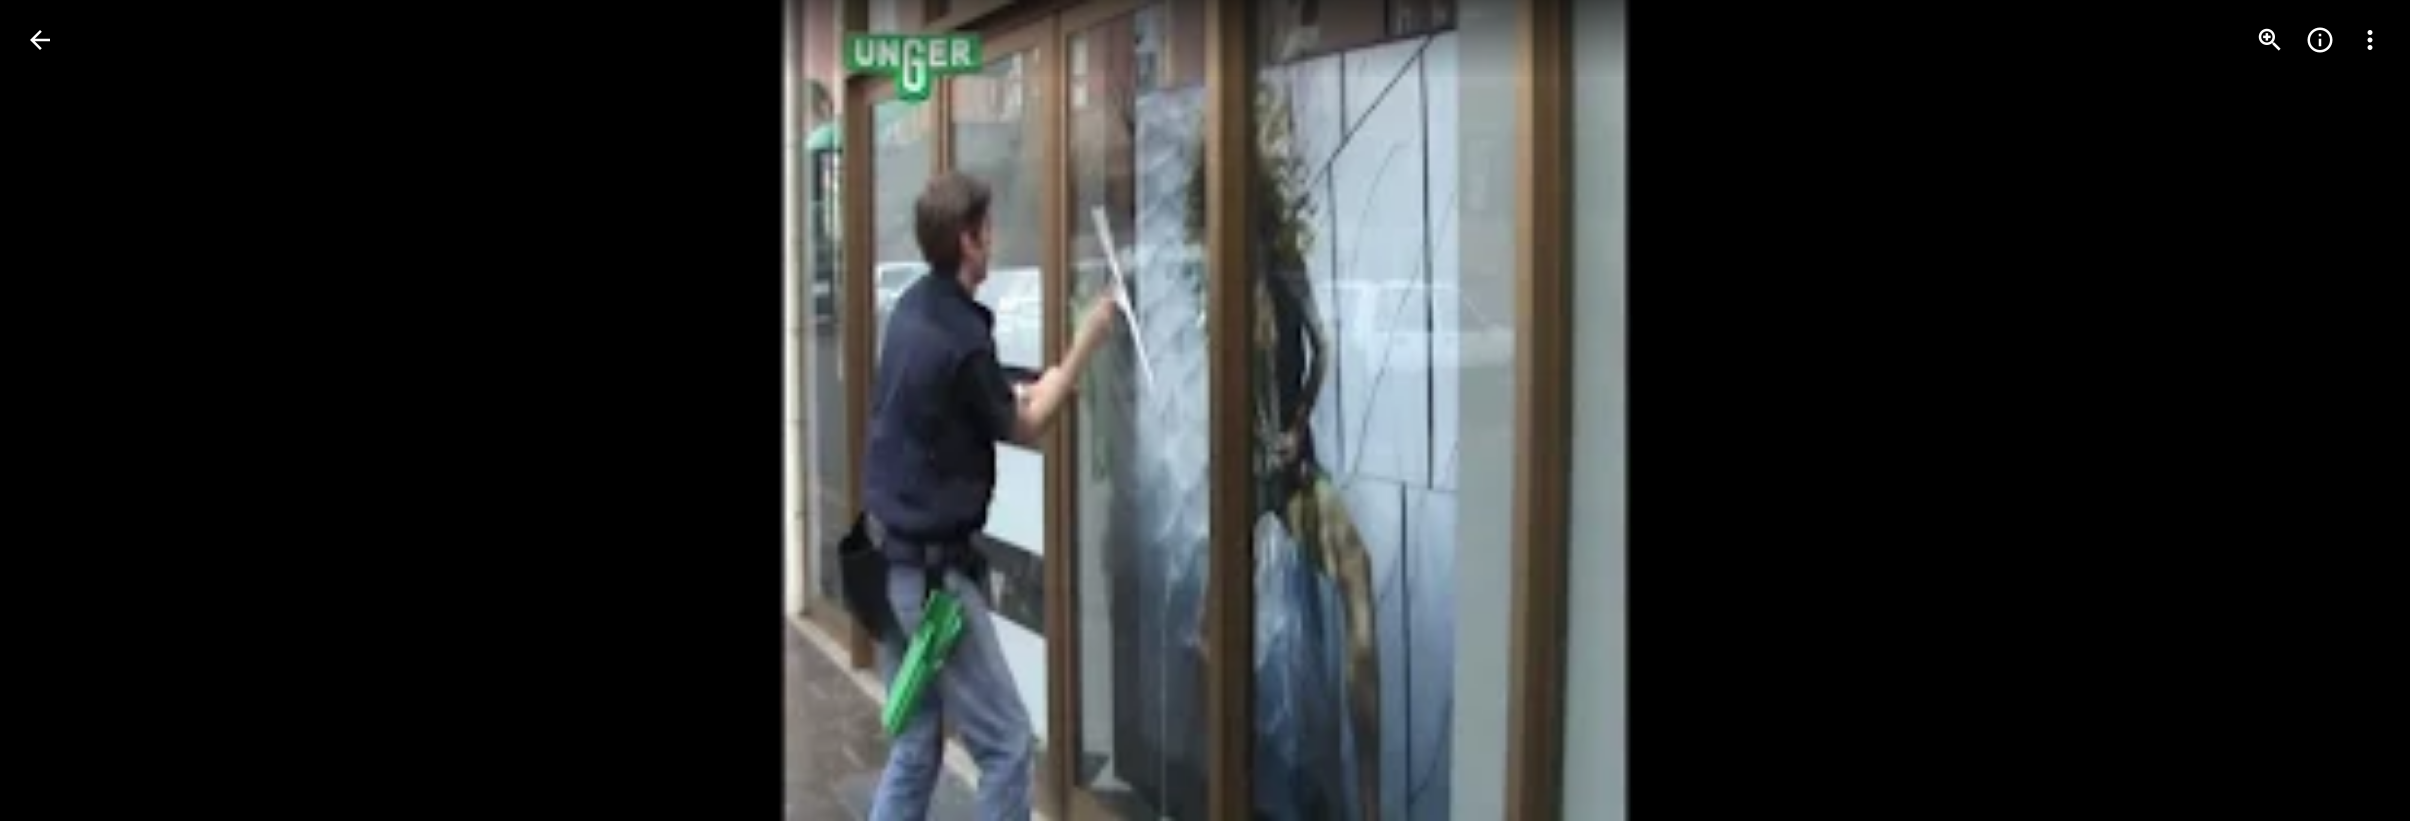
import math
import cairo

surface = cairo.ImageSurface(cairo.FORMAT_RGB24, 2410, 821)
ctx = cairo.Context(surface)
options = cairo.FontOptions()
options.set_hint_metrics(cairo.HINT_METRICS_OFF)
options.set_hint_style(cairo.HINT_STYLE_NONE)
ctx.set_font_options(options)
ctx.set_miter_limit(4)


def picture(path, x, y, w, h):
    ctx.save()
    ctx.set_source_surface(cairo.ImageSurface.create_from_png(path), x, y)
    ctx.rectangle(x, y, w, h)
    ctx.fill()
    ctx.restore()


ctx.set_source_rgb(0, 0, 0)
ctx.paint()
picture("img5.png", 779, 0, 854, 821)
gradient = cairo.LinearGradient(1205, 0, 1205, 80)
gradient.add_color_stop_rgba(0, 0, 0, 0, 0.6)
gradient.add_color_stop_rgba(1, 0, 0, 0, 0)
ctx.set_source(gradient)
ctx.rectangle(779, 0, 852, 77)
ctx.fill()
picture("img1.png", 30, 30, 20, 20)
picture("img2.png", 2258, 28, 23, 23)
picture("img3.png", 2307, 27, 26, 26)
picture("img4.png", 2367, 30, 6, 20)
surface.write_to_png("page.png")
